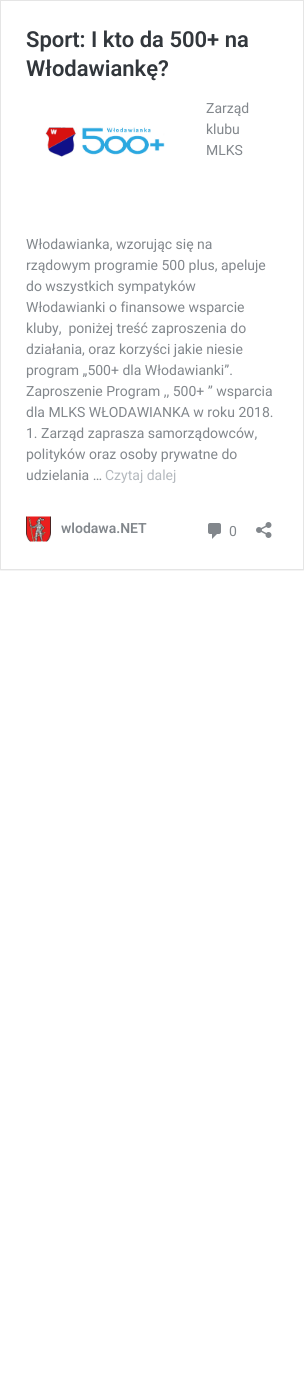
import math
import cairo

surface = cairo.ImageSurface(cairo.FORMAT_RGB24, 304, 1376)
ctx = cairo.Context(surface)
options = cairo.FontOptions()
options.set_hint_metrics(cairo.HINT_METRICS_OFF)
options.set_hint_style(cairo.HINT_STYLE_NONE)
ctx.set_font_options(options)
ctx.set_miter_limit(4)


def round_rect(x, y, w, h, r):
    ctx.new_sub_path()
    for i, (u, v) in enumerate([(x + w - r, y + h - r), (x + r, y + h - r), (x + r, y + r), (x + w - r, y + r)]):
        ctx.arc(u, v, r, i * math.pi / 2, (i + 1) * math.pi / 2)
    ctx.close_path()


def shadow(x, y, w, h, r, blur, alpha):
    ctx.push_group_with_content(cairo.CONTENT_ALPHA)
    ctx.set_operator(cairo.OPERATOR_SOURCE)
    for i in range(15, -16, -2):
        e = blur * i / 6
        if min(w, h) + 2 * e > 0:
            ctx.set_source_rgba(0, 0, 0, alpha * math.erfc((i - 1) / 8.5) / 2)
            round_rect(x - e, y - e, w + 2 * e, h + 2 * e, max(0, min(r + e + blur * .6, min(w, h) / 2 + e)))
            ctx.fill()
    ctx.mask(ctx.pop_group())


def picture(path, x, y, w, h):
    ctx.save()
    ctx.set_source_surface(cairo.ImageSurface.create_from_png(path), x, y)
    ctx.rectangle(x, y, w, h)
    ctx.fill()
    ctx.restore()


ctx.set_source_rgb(1, 1, 1)
ctx.paint()
ctx.save()
ctx.rectangle(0, 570, 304, 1)
ctx.clip()
ctx.set_source_rgb(0, 0, 0)
shadow(0, 1, 304, 570, 0, 0.5, 0.05)
ctx.restore()
ctx.rectangle(0.5, 0.5, 303, 569)
ctx.set_source_rgb(0.898, 0.898, 0.898)
ctx.set_line_width(1)
ctx.stroke()
ctx.select_font_face("Roboto SemiBold")
ctx.set_font_size(22)
ctx.set_source_rgb(0.196, 0.216, 0.235)
ctx.move_to(26, 47)
ctx.show_text("Sport: I kto da 500+ na")
ctx.move_to(26, 76)
ctx.show_text("Włodawiankę?")
ctx.select_font_face("Roboto")
ctx.set_font_size(14)
ctx.set_source_rgb(0.51, 0.529, 0.549)
ctx.move_to(206, 113)
ctx.show_text("Zarząd")
ctx.move_to(206, 134)
ctx.show_text("klubu")
ctx.move_to(206, 155)
ctx.show_text("MLKS")
ctx.move_to(26, 249)
ctx.show_text("Włodawianka, wzorując się na")
ctx.move_to(26, 270)
ctx.show_text("rządowym programie 500 plus, apeluje")
ctx.move_to(26, 291)
ctx.show_text("do wszystkich sympatyków")
ctx.move_to(26, 312)
ctx.show_text("Włodawianki o finansowe wsparcie")
ctx.move_to(26, 333)
ctx.show_text("kluby,  poniżej treść zaproszenia do")
ctx.move_to(26, 354)
ctx.show_text("działania, oraz korzyści jakie niesie")
ctx.move_to(26, 375)
ctx.show_text("program „500+ dla Włodawianki”.")
ctx.move_to(26, 396)
ctx.show_text("Zaproszenie Program ,, 500+ ” wsparcia")
ctx.move_to(26, 417)
ctx.show_text("dla MLKS WŁODAWIANKA w roku 2018.")
ctx.move_to(26, 438)
ctx.show_text("1. Zarząd zaprasza samorządowców,")
ctx.move_to(26, 459)
ctx.show_text("polityków oraz osoby prywatne do")
ctx.move_to(26, 480)
ctx.show_text("udzielania …")
ctx.set_source_rgb(0.706, 0.725, 0.745)
ctx.move_to(105, 480)
ctx.show_text("Czytaj dalej")
picture("img1.png", 45, 127, 120, 30)
picture("img2.png", 26, 516, 25, 26)
ctx.select_font_face("Roboto SemiBold")
ctx.set_source_rgb(0.51, 0.529, 0.549)
ctx.move_to(61, 533)
ctx.show_text("wlodawa.NET")
picture("img3.png", 208, 523, 13, 16)
ctx.select_font_face("Roboto")
ctx.move_to(229, 536)
ctx.show_text("0")
picture("img4.png", 256, 522, 16, 16)
surface.write_to_png("page.png")
